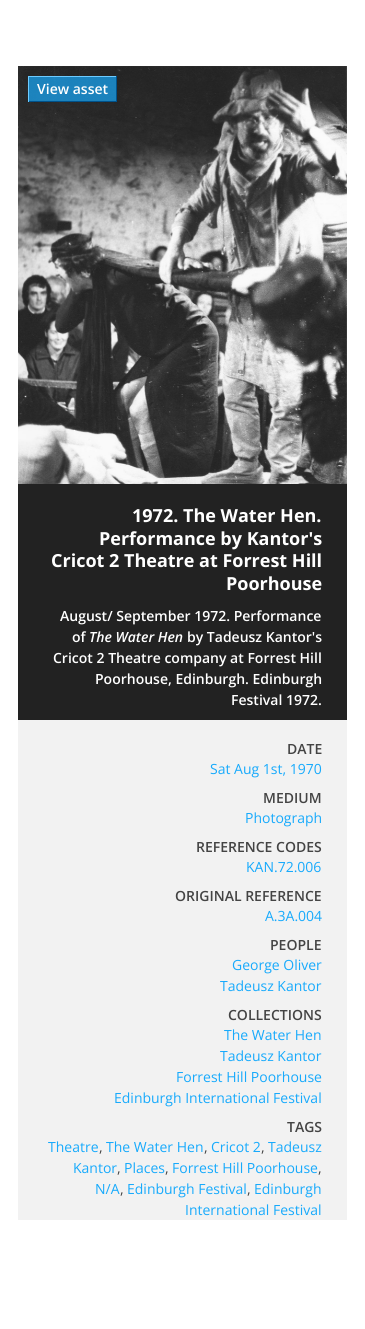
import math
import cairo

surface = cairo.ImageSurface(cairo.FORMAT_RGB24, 365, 1329)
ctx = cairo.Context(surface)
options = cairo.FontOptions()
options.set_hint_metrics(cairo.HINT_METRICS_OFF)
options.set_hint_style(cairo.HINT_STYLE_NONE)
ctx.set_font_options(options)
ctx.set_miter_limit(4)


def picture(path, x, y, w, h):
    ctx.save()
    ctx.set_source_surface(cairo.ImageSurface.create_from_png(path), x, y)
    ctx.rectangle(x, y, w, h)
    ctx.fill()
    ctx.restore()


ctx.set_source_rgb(1, 1, 1)
ctx.paint()
picture("img1.png", 18, 66, 329, 418)
ctx.set_source_rgba(0.09, 0.667, 0.988, 0.7)
ctx.rectangle(29, 77, 87, 24)
ctx.fill()
ctx.set_source_rgb(0.427, 0.796, 1)
ctx.rectangle(28, 76, 89, 1)
ctx.fill()
ctx.set_source_rgb(0, 0.322, 0.545)
ctx.rectangle(116, 76, 1, 26)
ctx.fill()
ctx.rectangle(28, 101, 89, 1)
ctx.fill()
ctx.set_source_rgb(0.427, 0.796, 1)
ctx.rectangle(28, 76, 1, 26)
ctx.fill()
ctx.select_font_face("Open Sans SemiBold")
ctx.set_font_size(14)
ctx.set_source_rgb(1, 1, 1)
ctx.move_to(37, 94)
ctx.show_text("View asset")
ctx.set_source_rgb(0.949, 0.949, 0.949)
ctx.rectangle(18, 720, 329, 500)
ctx.fill()
ctx.set_source_rgb(0.133, 0.133, 0.133)
ctx.rectangle(18, 484, 329, 236)
ctx.fill()
ctx.select_font_face("Open Sans", cairo.FONT_SLANT_NORMAL, cairo.FONT_WEIGHT_BOLD)
ctx.set_font_size(18)
ctx.set_source_rgb(1, 1, 1)
ctx.move_to(132, 522)
ctx.show_text("1972. The Water Hen.")
ctx.move_to(99, 545)
ctx.show_text("Performance by Kantor's")
ctx.move_to(51, 567)
ctx.show_text("Cricot 2 Theatre at Forrest Hill")
ctx.move_to(226, 590)
ctx.show_text("Poorhouse")
ctx.select_font_face("Open Sans SemiBold")
ctx.set_font_size(14)
ctx.move_to(60, 621)
ctx.show_text("August/ September 1972. Performance")
ctx.move_to(72, 642)
ctx.show_text("of")
ctx.select_font_face("Open Sans SemiBold", cairo.FONT_SLANT_ITALIC)
ctx.move_to(89, 642)
ctx.show_text("The Water Hen")
ctx.select_font_face("Open Sans SemiBold")
ctx.move_to(187, 642)
ctx.show_text("by Tadeusz Kantor's")
ctx.move_to(53, 663)
ctx.show_text("Cricot 2 Theatre company at Forrest Hill")
ctx.move_to(95, 684)
ctx.show_text("Poorhouse, Edinburgh. Edinburgh")
ctx.move_to(231, 705)
ctx.show_text("Festival 1972.")
ctx.set_source_rgb(0.267, 0.267, 0.267)
ctx.move_to(287, 754)
ctx.show_text("DATE")
ctx.select_font_face("Open Sans")
ctx.set_source_rgb(0.09, 0.667, 0.988)
ctx.move_to(210, 774)
ctx.show_text("Sat Aug 1st, 1970")
ctx.select_font_face("Open Sans SemiBold")
ctx.set_source_rgb(0.267, 0.267, 0.267)
ctx.move_to(263, 803)
ctx.show_text("MEDIUM")
ctx.select_font_face("Open Sans")
ctx.set_source_rgb(0.09, 0.667, 0.988)
ctx.move_to(245, 823)
ctx.show_text("Photograph")
ctx.select_font_face("Open Sans SemiBold")
ctx.set_source_rgb(0.267, 0.267, 0.267)
ctx.move_to(196, 852)
ctx.show_text("REFERENCE CODES")
ctx.select_font_face("Open Sans")
ctx.set_source_rgb(0.09, 0.667, 0.988)
ctx.move_to(246, 872)
ctx.show_text("KAN.72.006")
ctx.select_font_face("Open Sans SemiBold")
ctx.set_source_rgb(0.267, 0.267, 0.267)
ctx.move_to(175, 901)
ctx.show_text("ORIGINAL REFERENCE")
ctx.select_font_face("Open Sans")
ctx.set_source_rgb(0.09, 0.667, 0.988)
ctx.move_to(265, 921)
ctx.show_text("A.3A.004")
ctx.select_font_face("Open Sans SemiBold")
ctx.set_source_rgb(0.267, 0.267, 0.267)
ctx.move_to(270, 950)
ctx.show_text("PEOPLE")
ctx.select_font_face("Open Sans")
ctx.set_source_rgb(0.09, 0.667, 0.988)
ctx.move_to(232, 970)
ctx.show_text("George Oliver")
ctx.move_to(220, 991)
ctx.show_text("Tadeusz Kantor")
ctx.select_font_face("Open Sans SemiBold")
ctx.set_source_rgb(0.267, 0.267, 0.267)
ctx.move_to(228, 1020)
ctx.show_text("COLLECTIONS")
ctx.select_font_face("Open Sans")
ctx.set_source_rgb(0.09, 0.667, 0.988)
ctx.move_to(224, 1040)
ctx.show_text("The Water Hen")
ctx.move_to(220, 1061)
ctx.show_text("Tadeusz Kantor")
ctx.move_to(176, 1082)
ctx.show_text("Forrest Hill Poorhouse")
ctx.move_to(114, 1103)
ctx.show_text("Edinburgh International Festival")
ctx.select_font_face("Open Sans SemiBold")
ctx.set_source_rgb(0.267, 0.267, 0.267)
ctx.move_to(287, 1132)
ctx.show_text("TAGS")
ctx.select_font_face("Open Sans")
ctx.set_source_rgb(0.09, 0.667, 0.988)
ctx.move_to(48, 1152)
ctx.show_text("Theatre")
ctx.set_source_rgb(0.267, 0.267, 0.267)
ctx.move_to(99, 1152)
ctx.show_text(",")
ctx.set_source_rgb(0.09, 0.667, 0.988)
ctx.move_to(106, 1152)
ctx.show_text("The Water Hen")
ctx.set_source_rgb(0.267, 0.267, 0.267)
ctx.move_to(204, 1152)
ctx.show_text(",")
ctx.set_source_rgb(0.09, 0.667, 0.988)
ctx.move_to(211, 1152)
ctx.show_text("Cricot 2")
ctx.set_source_rgb(0.267, 0.267, 0.267)
ctx.move_to(261, 1152)
ctx.show_text(",")
ctx.set_source_rgb(0.09, 0.667, 0.988)
ctx.move_to(268, 1152)
ctx.show_text("Tadeusz")
ctx.move_to(73, 1173)
ctx.show_text("Kantor")
ctx.set_source_rgb(0.267, 0.267, 0.267)
ctx.move_to(117, 1173)
ctx.show_text(",")
ctx.set_source_rgb(0.09, 0.667, 0.988)
ctx.move_to(124, 1173)
ctx.show_text("Places")
ctx.set_source_rgb(0.267, 0.267, 0.267)
ctx.move_to(165, 1173)
ctx.show_text(",")
ctx.set_source_rgb(0.09, 0.667, 0.988)
ctx.move_to(172, 1173)
ctx.show_text("Forrest Hill Poorhouse")
ctx.set_source_rgb(0.267, 0.267, 0.267)
ctx.move_to(318, 1173)
ctx.show_text(",")
ctx.set_source_rgb(0.09, 0.667, 0.988)
ctx.move_to(95, 1194)
ctx.show_text("N/A")
ctx.set_source_rgb(0.267, 0.267, 0.267)
ctx.move_to(120, 1194)
ctx.show_text(",")
ctx.set_source_rgb(0.09, 0.667, 0.988)
ctx.move_to(127, 1194)
ctx.show_text("Edinburgh Festival")
ctx.set_source_rgb(0.267, 0.267, 0.267)
ctx.move_to(247, 1194)
ctx.show_text(",")
ctx.set_source_rgb(0.09, 0.667, 0.988)
ctx.move_to(254, 1194)
ctx.show_text("Edinburgh")
ctx.move_to(185, 1215)
ctx.show_text("International Festival")
surface.write_to_png("page.png")
